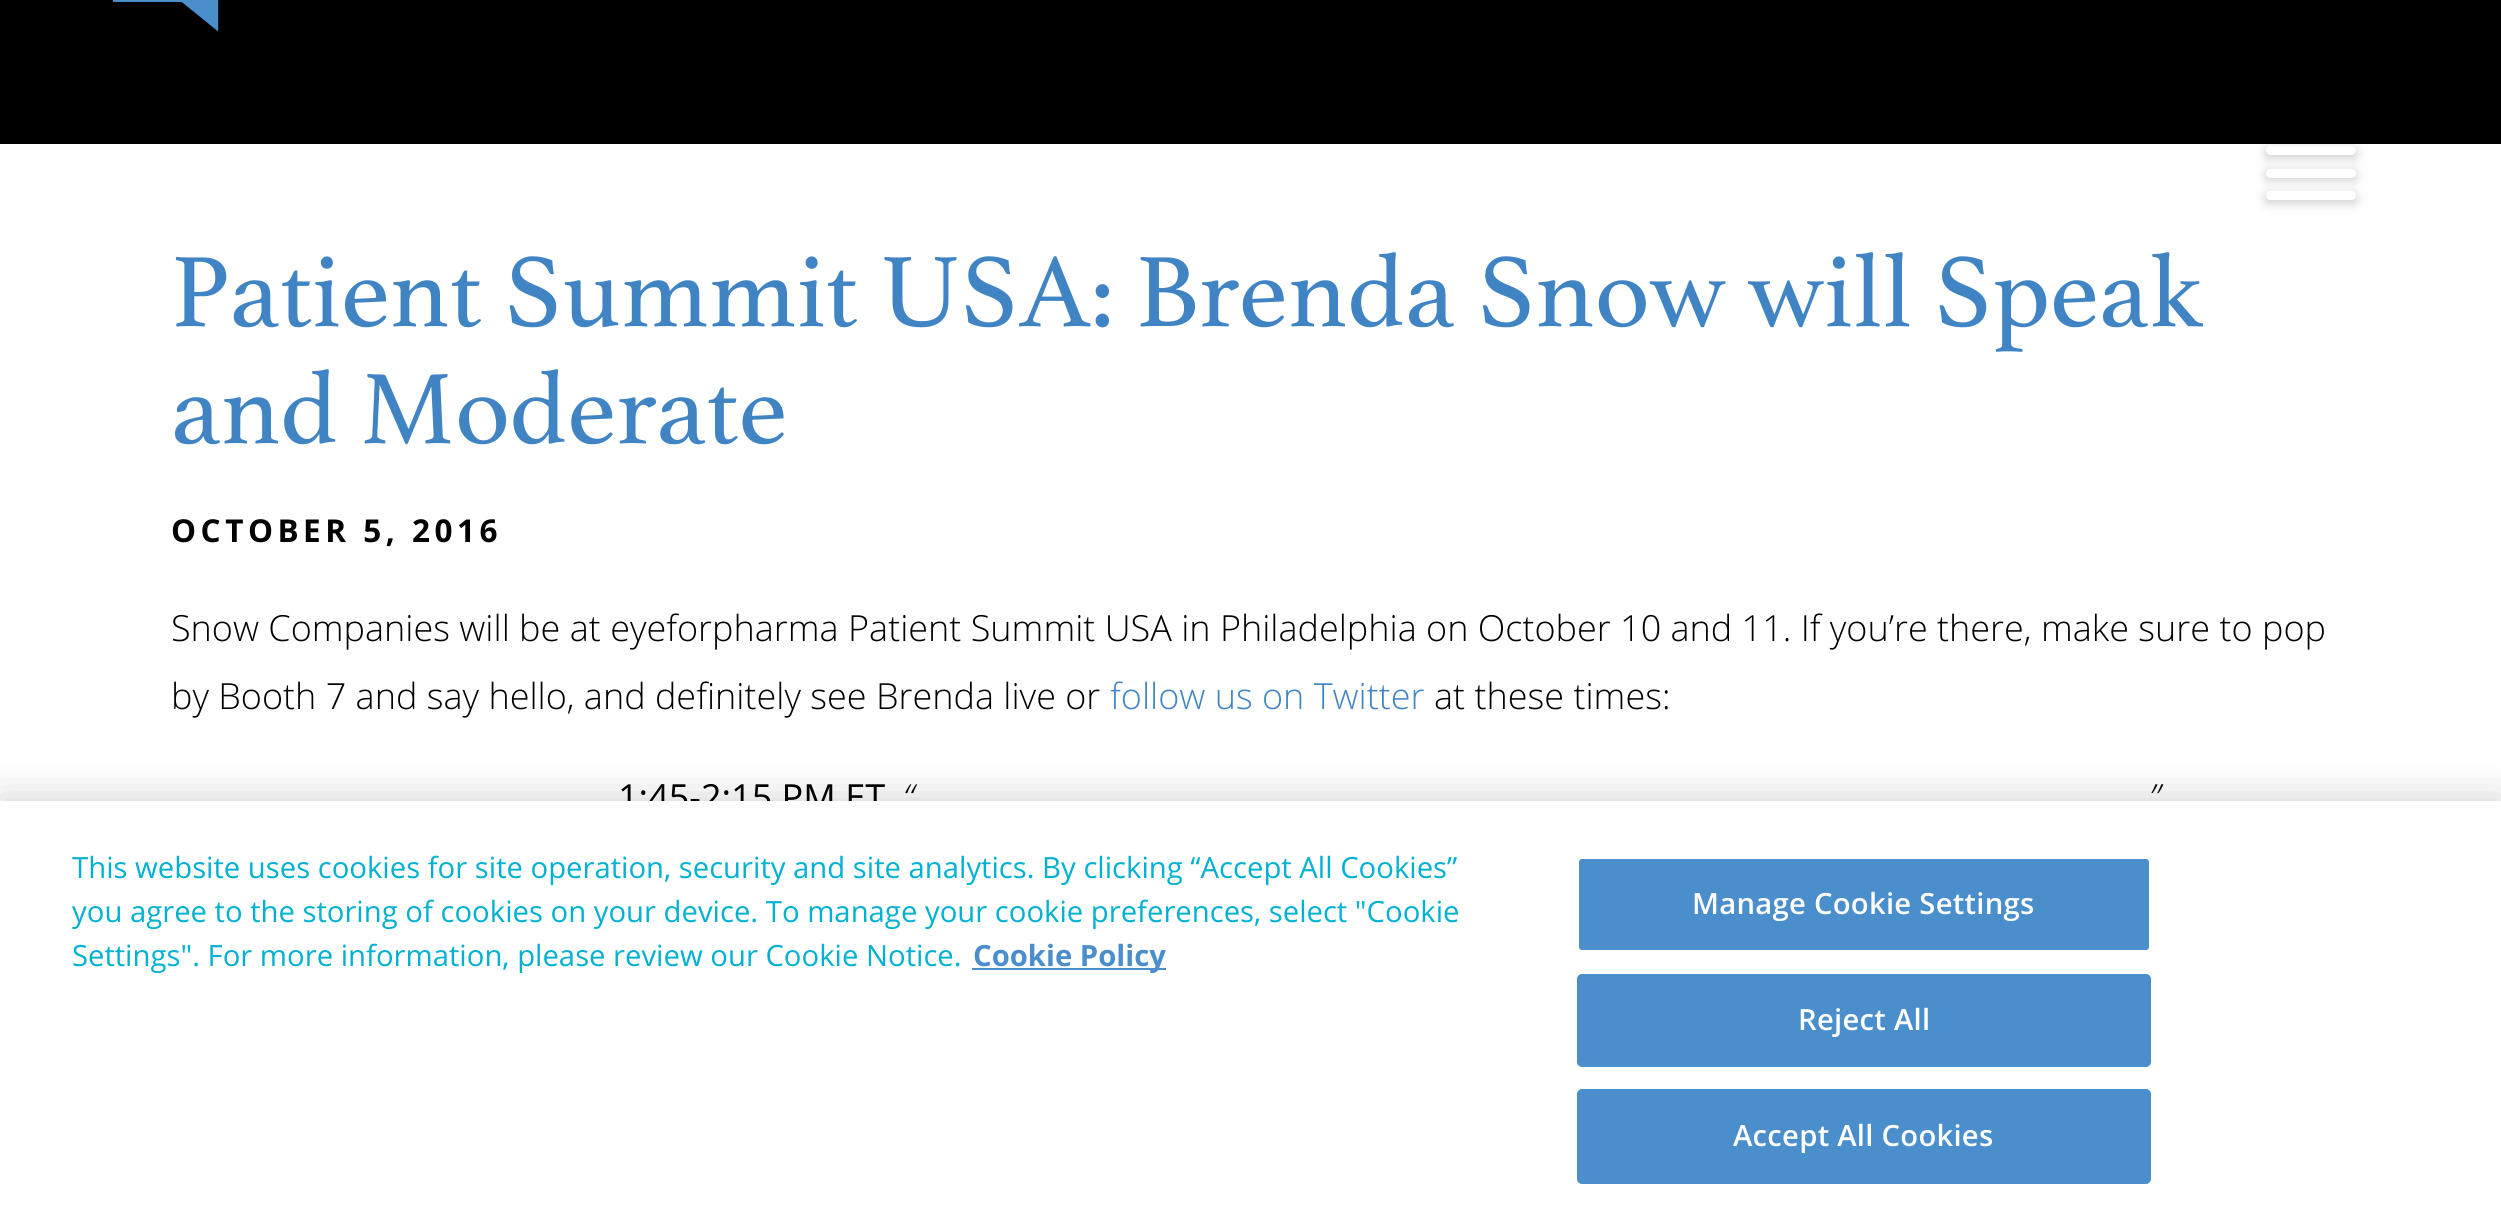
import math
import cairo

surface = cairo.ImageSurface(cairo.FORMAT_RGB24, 2501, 1227)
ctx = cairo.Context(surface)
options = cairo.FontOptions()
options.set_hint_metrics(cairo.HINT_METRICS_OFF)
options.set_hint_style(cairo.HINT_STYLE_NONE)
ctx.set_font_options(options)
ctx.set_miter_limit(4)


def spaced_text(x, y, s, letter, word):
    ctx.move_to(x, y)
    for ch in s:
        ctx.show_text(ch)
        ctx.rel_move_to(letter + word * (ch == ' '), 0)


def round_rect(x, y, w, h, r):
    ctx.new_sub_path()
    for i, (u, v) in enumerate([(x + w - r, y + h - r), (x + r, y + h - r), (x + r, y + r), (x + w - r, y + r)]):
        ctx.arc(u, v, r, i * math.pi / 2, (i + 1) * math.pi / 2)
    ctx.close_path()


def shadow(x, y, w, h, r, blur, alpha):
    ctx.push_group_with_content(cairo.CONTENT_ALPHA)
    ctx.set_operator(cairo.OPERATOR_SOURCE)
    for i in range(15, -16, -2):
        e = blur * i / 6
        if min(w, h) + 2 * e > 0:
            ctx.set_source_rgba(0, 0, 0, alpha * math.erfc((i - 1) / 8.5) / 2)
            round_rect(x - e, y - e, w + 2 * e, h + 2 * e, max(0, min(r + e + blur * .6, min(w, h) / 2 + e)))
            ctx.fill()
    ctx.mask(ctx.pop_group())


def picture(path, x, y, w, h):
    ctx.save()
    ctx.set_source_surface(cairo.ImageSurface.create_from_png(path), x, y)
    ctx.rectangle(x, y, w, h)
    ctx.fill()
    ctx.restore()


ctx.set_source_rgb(0, 0, 0)
ctx.paint()
ctx.set_source_rgb(1, 1, 1)
ctx.rectangle(0, 144, 2501, 657)
ctx.fill()
ctx.set_source_rgb(0, 0, 0)
shadow(2266, 149, 90, 9, 4.5, 5.5, 0.2)
ctx.set_source_rgb(1, 1, 1)
round_rect(2266, 146, 90, 9, 4.5)
ctx.fill()
ctx.set_source_rgb(0, 0, 0)
shadow(2266, 171, 90, 9, 4.5, 5.5, 0.2)
ctx.set_source_rgb(1, 1, 1)
round_rect(2266, 169, 90, 9, 4.5)
ctx.fill()
ctx.set_source_rgb(0, 0, 0)
shadow(2266, 194, 90, 9, 4.5, 5.5, 0.2)
ctx.set_source_rgb(1, 1, 1)
round_rect(2266, 191, 90, 9, 4.5)
ctx.fill()
picture("img1.png", 113, 0, 106, 32)
ctx.select_font_face("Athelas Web")
ctx.set_font_size(108)
ctx.set_source_rgb(0.251, 0.518, 0.769)
ctx.move_to(171, 326)
ctx.show_text("Patient Summit USA: Brenda Snow will Speak")
ctx.move_to(171, 443)
ctx.show_text("and Moderate")
ctx.select_font_face("Open Sans", cairo.FONT_SLANT_NORMAL, cairo.FONT_WEIGHT_BOLD)
ctx.set_font_size(31.5)
ctx.set_source_rgb(0, 0, 0)
spaced_text(171, 542, "OCTOBER 5, 2016", 4.5, 0)
ctx.select_font_face("Open Sans Light")
ctx.set_font_size(36)
ctx.move_to(171, 641)
ctx.show_text("Snow Companies will be at eyeforpharma Patient Summit USA in Philadelphia on October 10 and 11. If you’re there, make sure to pop")
ctx.move_to(171, 709)
ctx.show_text("by Booth 7 and say hello, and definitely see Brenda live or")
ctx.set_source_rgb(0.251, 0.518, 0.769)
ctx.move_to(1110, 709)
ctx.show_text("follow us on Twitter")
ctx.set_source_rgb(0, 0, 0)
ctx.move_to(1434, 709)
ctx.show_text("at these times:")
ctx.select_font_face("Open Sans")
ctx.move_to(618, 810)
ctx.show_text("1:45-2:15 PM ET")
ctx.select_font_face("Open Sans Light", cairo.FONT_SLANT_ITALIC)
ctx.move_to(903, 810)
ctx.show_text("“")
ctx.move_to(2149, 810)
ctx.show_text("”")
ctx.set_source_rgb(0, 0, 0)
shadow(0, 801, 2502, 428, 0, 20, 0.2)
ctx.set_source_rgb(1, 1, 1)
ctx.rectangle(0, 801, 2501, 426)
ctx.fill()
ctx.select_font_face("Open Sans")
ctx.set_font_size(29.25)
ctx.set_source_rgb(0, 0.694, 0.82)
ctx.move_to(72, 878)
ctx.show_text("This website uses cookies for site operation, security and site analytics. By clicking “Accept All Cookies”")
ctx.move_to(72, 922)
ctx.show_text("you agree to the storing of cookies on your device. To manage your cookie preferences, select \"Cookie")
ctx.move_to(72, 966)
ctx.show_text("Settings\". For more information, please review our Cookie Notice.")
ctx.set_source_rgb(0.29, 0.557, 0.8)
ctx.rectangle(972, 968, 194, 2)
ctx.fill()
ctx.select_font_face("Open Sans", cairo.FONT_SLANT_NORMAL, cairo.FONT_WEIGHT_BOLD)
ctx.move_to(973, 966)
ctx.show_text("Cookie Policy")
round_rect(1578, 858, 572, 93, 4)
ctx.fill_preserve()
ctx.set_source_rgb(1, 1, 1)
ctx.stroke()
ctx.select_font_face("Open Sans SemiBold")
spaced_text(1692, 914, "Manage Cookie Settings", 0.25, 0)
ctx.set_source_rgb(0.29, 0.557, 0.8)
round_rect(1578, 975, 572, 91, 4)
ctx.fill_preserve()
ctx.stroke()
ctx.set_source_rgb(1, 1, 1)
spaced_text(1798, 1030, "Reject All", 0.25, 0)
ctx.set_source_rgb(0.29, 0.557, 0.8)
round_rect(1578, 1090, 572, 93, 4)
ctx.fill_preserve()
ctx.stroke()
ctx.set_source_rgb(1, 1, 1)
spaced_text(1733, 1146, "Accept All Cookies", 0.25, 0)
surface.write_to_png("page.png")
